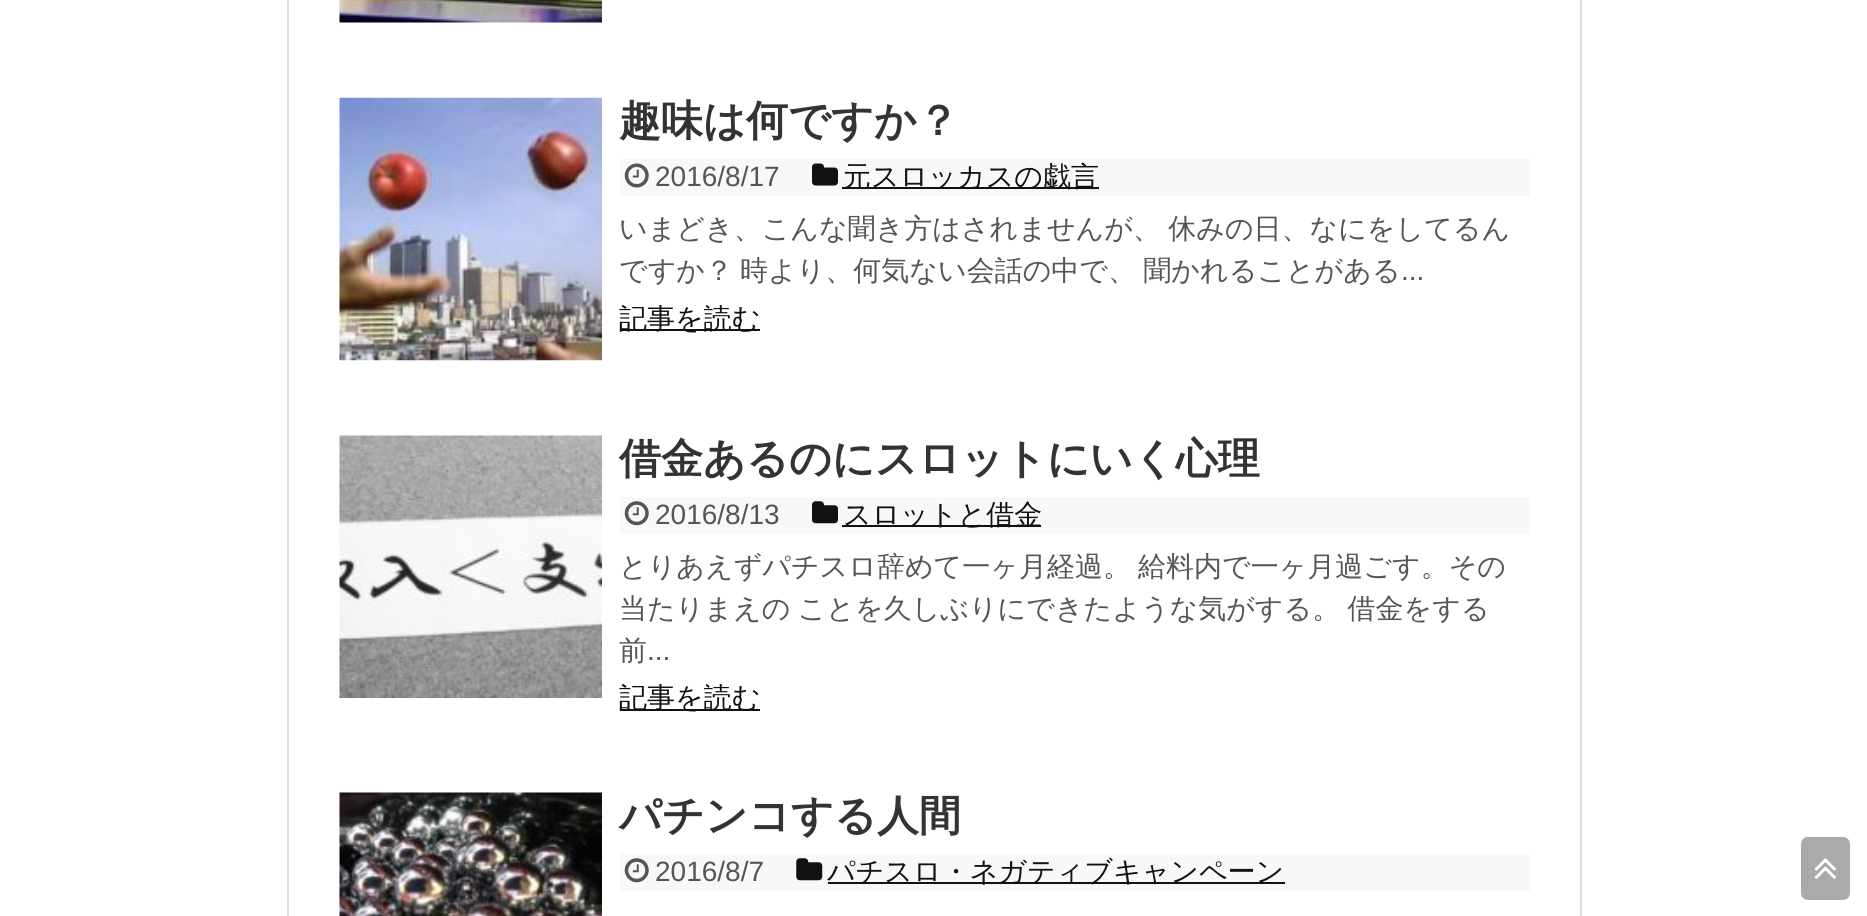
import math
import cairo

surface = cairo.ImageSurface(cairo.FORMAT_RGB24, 1867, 916)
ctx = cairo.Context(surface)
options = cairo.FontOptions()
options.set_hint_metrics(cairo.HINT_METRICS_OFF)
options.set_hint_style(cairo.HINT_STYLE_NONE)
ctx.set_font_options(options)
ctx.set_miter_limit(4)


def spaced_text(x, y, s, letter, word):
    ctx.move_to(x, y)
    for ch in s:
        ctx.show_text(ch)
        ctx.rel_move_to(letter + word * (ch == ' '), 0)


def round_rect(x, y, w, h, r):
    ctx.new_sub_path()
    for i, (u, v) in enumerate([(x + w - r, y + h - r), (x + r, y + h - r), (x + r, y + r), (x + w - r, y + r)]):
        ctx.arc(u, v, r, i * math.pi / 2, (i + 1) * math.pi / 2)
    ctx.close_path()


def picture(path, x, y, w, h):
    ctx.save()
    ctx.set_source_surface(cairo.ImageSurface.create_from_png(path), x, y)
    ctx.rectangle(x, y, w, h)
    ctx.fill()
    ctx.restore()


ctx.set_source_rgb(1, 1, 1)
ctx.paint()
ctx.rectangle(288, -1, 1293, 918)
ctx.set_source_rgb(0.867, 0.867, 0.867)
ctx.stroke()
picture("img1.png", 339, 0, 263, 23)
picture("img2.png", 339, 97, 263, 264)
ctx.select_font_face("WenQuanYi Zen Hei", cairo.FONT_SLANT_NORMAL, cairo.FONT_WEIGHT_BOLD)
ctx.set_font_size(42)
ctx.set_source_rgb(0.2, 0.2, 0.2)
ctx.move_to(619, 135)
ctx.show_text("趣味は何ですか？")
ctx.set_source_rgb(0.969, 0.969, 0.969)
ctx.rectangle(620, 159, 910, 37)
ctx.fill()
picture("img3.png", 624, 163, 25, 25)
ctx.select_font_face("Liberation Sans")
ctx.set_font_size(28)
ctx.set_source_rgb(0.333, 0.333, 0.333)
ctx.move_to(655, 186)
ctx.show_text("2016/8/17")
picture("img4.png", 812, 163, 26, 23)
ctx.set_source_rgb(0.067, 0.067, 0.067)
ctx.rectangle(842, 187, 257, 2)
ctx.fill()
ctx.select_font_face("WenQuanYi Zen Hei Medium")
ctx.move_to(843, 186)
ctx.show_text("元スロッカスの戯言")
ctx.set_source_rgb(0.333, 0.333, 0.333)
spaced_text(619, 238, "いまどき、こんな聞き方はされませんが、 休みの日、なにをしてるん", 0, -1)
ctx.move_to(619, 280)
ctx.show_text("ですか？")
spaced_text(740, 280, "時より、何気ない会話の中で、 聞かれることがある", 0, -1)
ctx.select_font_face("Liberation Sans")
ctx.move_to(1401, 280)
ctx.show_text("...")
ctx.set_source_rgb(0.067, 0.067, 0.067)
ctx.rectangle(620, 329, 140, 2)
ctx.fill()
ctx.select_font_face("WenQuanYi Zen Hei Medium")
ctx.move_to(619, 328)
ctx.show_text("記事を読む")
picture("img5.png", 339, 435, 263, 263)
ctx.select_font_face("WenQuanYi Zen Hei", cairo.FONT_SLANT_NORMAL, cairo.FONT_WEIGHT_BOLD)
ctx.set_font_size(42)
ctx.set_source_rgb(0.2, 0.2, 0.2)
ctx.move_to(619, 473)
ctx.show_text("借金あるのにスロットにいく心理")
ctx.set_source_rgb(0.969, 0.969, 0.969)
ctx.rectangle(620, 497, 910, 37)
ctx.fill()
picture("img6.png", 624, 501, 25, 25)
ctx.select_font_face("Liberation Sans")
ctx.set_font_size(28)
ctx.set_source_rgb(0.333, 0.333, 0.333)
ctx.move_to(655, 524)
ctx.show_text("2016/8/13")
picture("img7.png", 812, 501, 26, 23)
ctx.set_source_rgb(0.067, 0.067, 0.067)
ctx.rectangle(842, 525, 199, 2)
ctx.fill()
ctx.select_font_face("WenQuanYi Zen Hei Medium")
ctx.move_to(843, 524)
ctx.show_text("スロットと借金")
ctx.set_source_rgb(0.333, 0.333, 0.333)
ctx.move_to(619, 576)
ctx.show_text("とりあえずパチスロ辞めて一ヶ月経過。")
ctx.move_to(1138, 576)
ctx.show_text("給料内で一ヶ月過ごす。その")
spaced_text(619, 618, "当たりまえの ことを久しぶりにできたような気がする。 借金をする", 0, -1)
ctx.move_to(619, 660)
ctx.show_text("前")
ctx.select_font_face("Liberation Sans")
ctx.move_to(647, 660)
ctx.show_text("...")
ctx.set_source_rgb(0.067, 0.067, 0.067)
ctx.rectangle(620, 709, 140, 2)
ctx.fill()
ctx.select_font_face("WenQuanYi Zen Hei Medium")
ctx.move_to(619, 707)
ctx.show_text("記事を読む")
picture("img8.png", 339, 792, 263, 124)
ctx.select_font_face("WenQuanYi Zen Hei", cairo.FONT_SLANT_NORMAL, cairo.FONT_WEIGHT_BOLD)
ctx.set_font_size(42)
ctx.set_source_rgb(0.2, 0.2, 0.2)
ctx.move_to(619, 830)
ctx.show_text("パチンコする人間")
ctx.set_source_rgb(0.969, 0.969, 0.969)
ctx.rectangle(620, 854, 910, 37)
ctx.fill()
picture("img6.png", 624, 858, 25, 25)
ctx.select_font_face("Liberation Sans")
ctx.set_font_size(28)
ctx.set_source_rgb(0.333, 0.333, 0.333)
ctx.move_to(655, 881)
ctx.show_text("2016/8/7")
picture("img9.png", 796, 858, 27, 23)
ctx.set_source_rgb(0.067, 0.067, 0.067)
ctx.rectangle(828, 882, 457, 2)
ctx.fill()
ctx.select_font_face("WenQuanYi Zen Hei Medium")
ctx.move_to(827, 881)
ctx.show_text("パチスロ・ネガティブキャンペーン")
ctx.set_source_rgb(0.667, 0.667, 0.667)
round_rect(1801, 837, 49, 63, 7)
ctx.fill()
picture("img10.png", 1814, 858, 22, 21)
surface.write_to_png("page.png")
